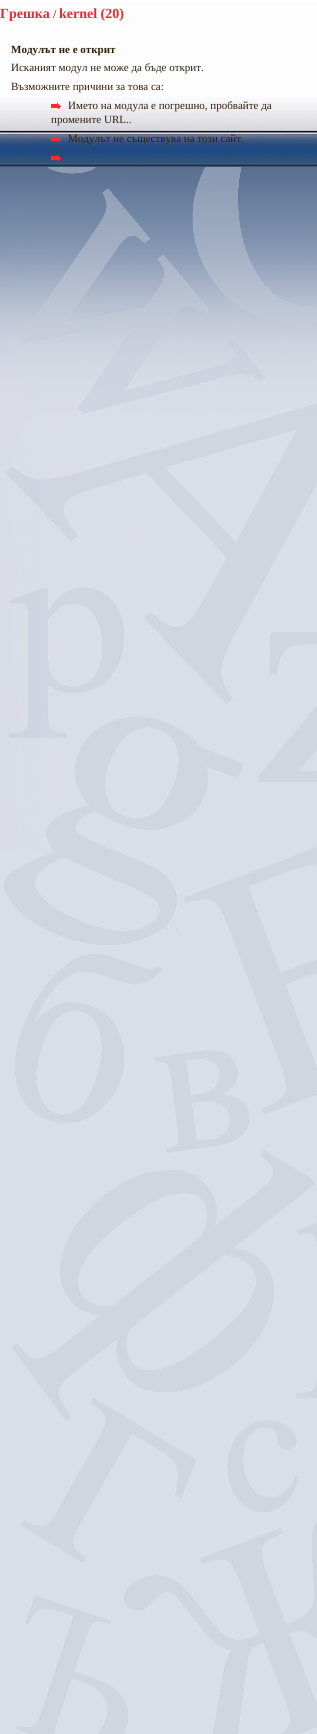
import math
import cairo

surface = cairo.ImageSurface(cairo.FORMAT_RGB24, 317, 1734)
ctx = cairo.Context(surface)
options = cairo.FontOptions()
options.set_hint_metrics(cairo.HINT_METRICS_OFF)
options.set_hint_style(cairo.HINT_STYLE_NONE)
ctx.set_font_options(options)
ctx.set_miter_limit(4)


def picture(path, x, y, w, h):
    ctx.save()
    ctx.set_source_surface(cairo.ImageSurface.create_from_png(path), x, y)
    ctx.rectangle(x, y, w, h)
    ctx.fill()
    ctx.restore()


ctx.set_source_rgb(1, 1, 1)
ctx.paint()
picture("img1.png", 0, 0, 317, 1734)
ctx.select_font_face("Liberation Serif", cairo.FONT_SLANT_NORMAL, cairo.FONT_WEIGHT_BOLD)
ctx.set_font_size(14)
ctx.set_source_rgb(0.918, 0.165, 0.184)
ctx.move_to(0, 18)
ctx.show_text("Грешка")
ctx.select_font_face("Liberation Serif")
ctx.set_font_size(12)
ctx.set_source_rgb(0.2, 0.122, 0.035)
ctx.move_to(53, 18)
ctx.show_text("/")
ctx.select_font_face("Liberation Serif", cairo.FONT_SLANT_NORMAL, cairo.FONT_WEIGHT_BOLD)
ctx.set_font_size(14)
ctx.set_source_rgb(0.918, 0.165, 0.184)
ctx.move_to(59, 18)
ctx.show_text("kernel (20)")
ctx.set_font_size(11)
ctx.set_source_rgb(0.2, 0.122, 0.035)
ctx.move_to(11, 53)
ctx.show_text("Модулът не е открит")
ctx.select_font_face("Liberation Serif")
ctx.move_to(11, 71)
ctx.show_text("Исканият модул не може да бъде открит.")
ctx.move_to(11, 90)
ctx.show_text("Възможните причини за това са:")
picture("img2.png", 51, 103, 10, 6)
ctx.move_to(68, 109)
ctx.show_text("Името на модула е погрешно, пробвайте да")
ctx.move_to(51, 123)
ctx.show_text("промените URL..")
picture("img3.png", 51, 136, 10, 6)
ctx.move_to(68, 142)
ctx.show_text("Модулът не съществува на този сайт.")
picture("img4.png", 51, 155, 10, 6)
surface.write_to_png("page.png")
